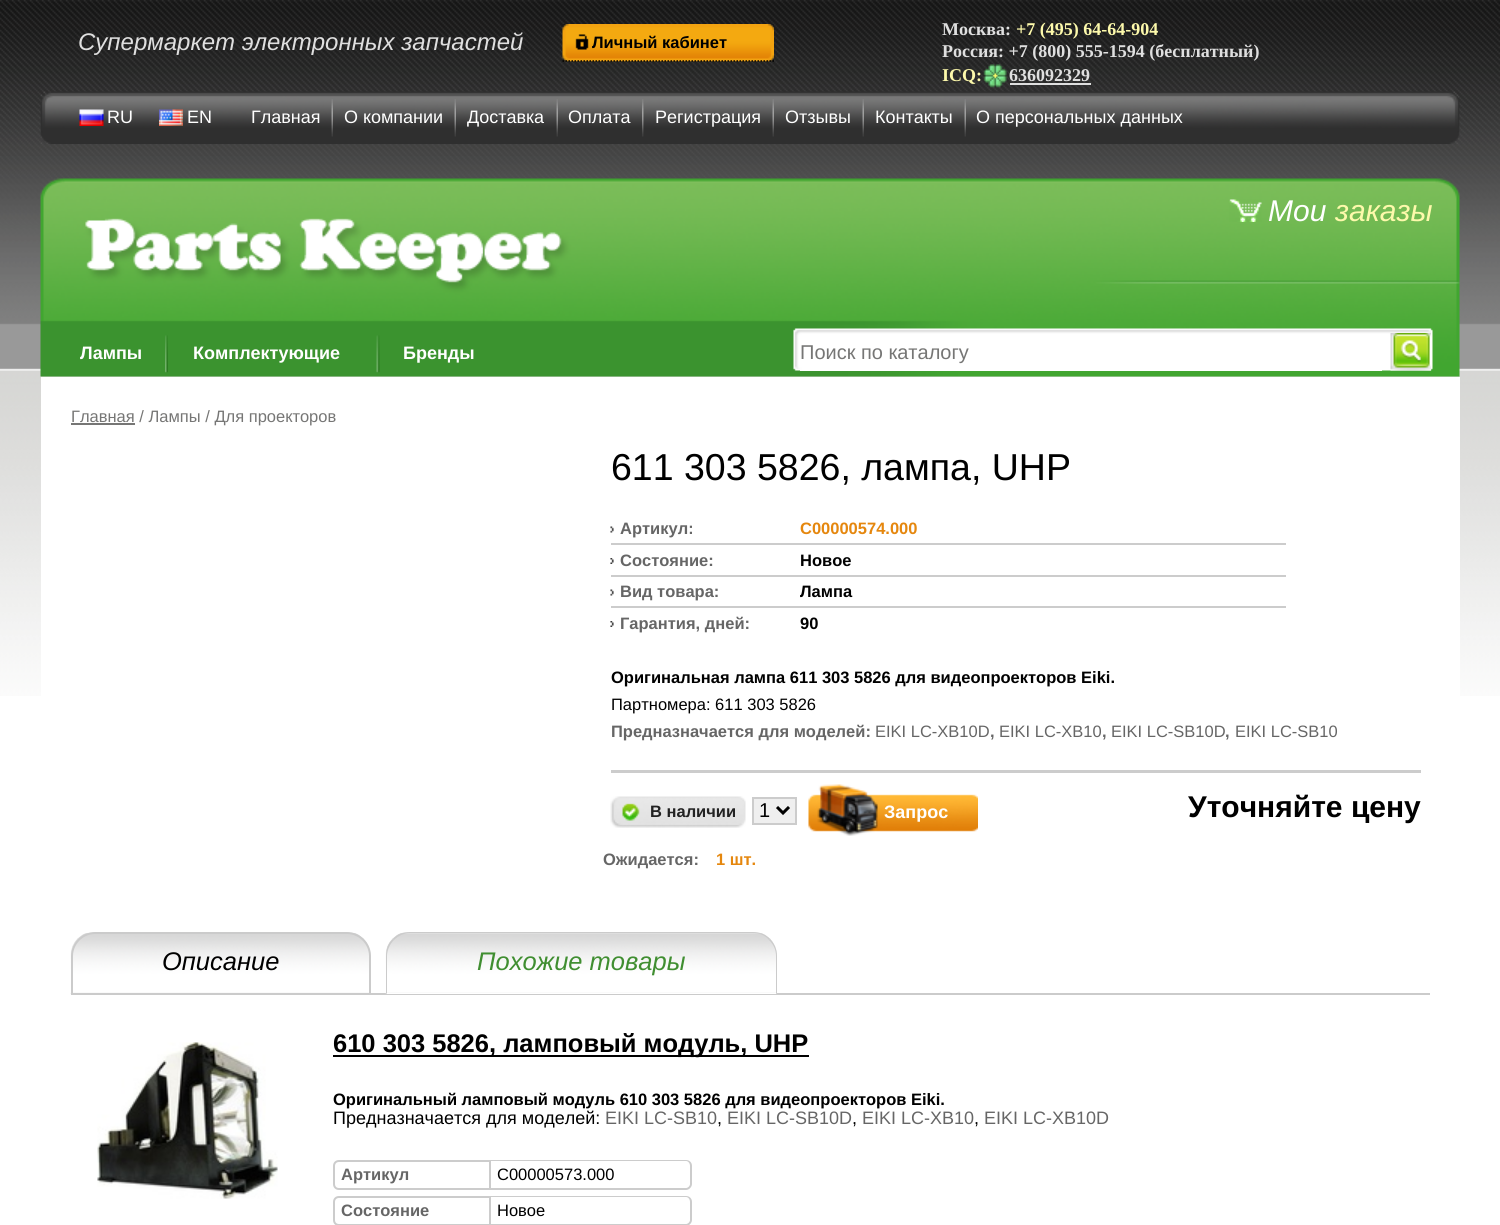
import math
import cairo

surface = cairo.ImageSurface(cairo.FORMAT_RGB24, 1500, 1225)
ctx = cairo.Context(surface)
options = cairo.FontOptions()
options.set_hint_metrics(cairo.HINT_METRICS_OFF)
options.set_hint_style(cairo.HINT_STYLE_NONE)
ctx.set_font_options(options)
ctx.set_miter_limit(4)


def picture(path, x, y, w, h):
    ctx.save()
    ctx.set_source_surface(cairo.ImageSurface.create_from_png(path), x, y)
    ctx.rectangle(x, y, w, h)
    ctx.fill()
    ctx.restore()


ctx.set_source_rgb(1, 1, 1)
ctx.paint()
picture("img1.png", 0, 0, 1500, 696)
ctx.select_font_face("Liberation Sans", cairo.FONT_SLANT_ITALIC)
ctx.set_font_size(24)
ctx.set_source_rgb(0.875, 0.875, 0.875)
ctx.move_to(78, 50)
ctx.show_text("Супермаркет электронных запчастей")
picture("img2.png", 562, 24, 212, 38)
ctx.new_path()
ctx.move_to(562.5, 61)
ctx.line_to(774, 61)
ctx.set_source_rgb(0, 0, 0)
ctx.set_line_width(1.5)
ctx.set_dash([1.5, 1.5])
ctx.stroke()
ctx.select_font_face("Liberation Sans", cairo.FONT_SLANT_NORMAL, cairo.FONT_WEIGHT_BOLD)
ctx.set_font_size(16.5)
ctx.move_to(592, 48)
ctx.show_text("Личный кабинет")
ctx.select_font_face("Liberation Serif", cairo.FONT_SLANT_NORMAL, cairo.FONT_WEIGHT_BOLD)
ctx.set_font_size(18)
ctx.set_source_rgb(0.875, 0.875, 0.875)
ctx.move_to(942, 35)
ctx.show_text("Москва:")
ctx.set_source_rgb(0.992, 0.976, 0.671)
ctx.move_to(1016, 35)
ctx.show_text("+7 (495) 64-64-904")
ctx.set_source_rgb(0.875, 0.875, 0.875)
ctx.move_to(942, 57)
ctx.show_text("Россия: +7 (800) 555-1594 (бесплатный)")
ctx.set_source_rgb(0.992, 0.976, 0.671)
ctx.move_to(942, 81)
ctx.show_text("ICQ:")
picture("img3.png", 983, 64, 24, 24)
ctx.set_source_rgb(0.875, 0.875, 0.875)
ctx.move_to(1009, 81)
ctx.show_text("636092329")
ctx.rectangle(1010, 83, 81, 2)
ctx.fill()
picture("img4.png", 40, 91, 1420, 53)
picture("img5.png", 79, 109, 25, 17)
ctx.select_font_face("Liberation Sans")
ctx.set_source_rgb(1, 1, 1)
ctx.move_to(107, 123)
ctx.show_text("RU")
picture("img6.png", 159, 109, 24, 17)
ctx.move_to(187, 123)
ctx.show_text("EN")
ctx.move_to(251, 123)
ctx.show_text("Главная")
picture("img7.png", 331, 99, 2, 38)
ctx.move_to(344, 123)
ctx.show_text("О компании")
picture("img8.png", 454, 99, 2, 38)
ctx.move_to(467, 123)
ctx.show_text("Доставка")
picture("img9.png", 556, 99, 2, 38)
ctx.move_to(568, 123)
ctx.show_text("Оплата")
picture("img10.png", 642, 99, 2, 38)
ctx.move_to(655, 123)
ctx.show_text("Регистрация")
picture("img11.png", 772, 99, 2, 38)
ctx.move_to(785, 123)
ctx.show_text("Отзывы")
picture("img12.png", 862, 99, 2, 38)
ctx.move_to(875, 123)
ctx.show_text("Контакты")
picture("img13.png", 964, 99, 2, 38)
ctx.move_to(976, 123)
ctx.show_text("О персональных данных")
picture("img14.png", 40, 178, 1420, 199)
picture("img15.png", 1229, 199, 33, 23)
ctx.select_font_face("Liberation Sans", cairo.FONT_SLANT_ITALIC)
ctx.set_font_size(30)
ctx.move_to(1268, 221)
ctx.show_text("Мои")
ctx.set_source_rgb(0.992, 0.976, 0.671)
ctx.move_to(1335, 221)
ctx.show_text("заказы")
ctx.select_font_face("Liberation Sans", cairo.FONT_SLANT_NORMAL, cairo.FONT_WEIGHT_BOLD)
ctx.set_font_size(18)
ctx.set_source_rgb(1, 1, 1)
ctx.move_to(80, 359)
ctx.show_text("Лампы")
picture("img16.png", 165, 335, 3, 38)
ctx.move_to(193, 359)
ctx.show_text("Комплектующие")
picture("img17.png", 376, 335, 4, 38)
ctx.move_to(403, 359)
ctx.show_text("Бренды")
picture("img18.png", 793, 328, 640, 43)
ctx.rectangle(800, 370, 582, 1)
ctx.fill()
ctx.select_font_face("Liberation Sans")
ctx.set_font_size(20)
ctx.set_source_rgb(0.463, 0.463, 0.459)
ctx.move_to(800, 359)
ctx.show_text("Поиск по каталогу")
picture("img19.png", 1390, 333, 41, 38)
ctx.set_source_rgb(1, 1, 1)
ctx.rectangle(41, 377, 1419, 319)
ctx.fill()
ctx.set_source_rgb(0.463, 0.463, 0.459)
ctx.rectangle(71, 423, 64, 2)
ctx.fill()
ctx.set_font_size(16.5)
ctx.move_to(71, 422)
ctx.show_text("Главная / Лампы / Для проекторов")
ctx.set_font_size(37.5)
ctx.set_source_rgb(0, 0, 0)
ctx.move_to(611, 480)
ctx.show_text("611 303 5826, лампа, UHP")
ctx.set_source_rgb(0.8, 0.8, 0.8)
ctx.rectangle(611, 543, 675, 2)
ctx.fill()
picture("img20.png", 610, 526, 4, 7)
ctx.select_font_face("Liberation Sans", cairo.FONT_SLANT_NORMAL, cairo.FONT_WEIGHT_BOLD)
ctx.set_font_size(16.5)
ctx.set_source_rgb(0.4, 0.4, 0.4)
ctx.move_to(620, 534)
ctx.show_text("Артикул:")
ctx.set_source_rgb(0.898, 0.529, 0.055)
ctx.move_to(800, 534)
ctx.show_text("C00000574.000")
ctx.set_source_rgb(0.8, 0.8, 0.8)
ctx.rectangle(611, 575, 675, 2)
ctx.fill()
picture("img21.png", 610, 558, 4, 6)
ctx.set_source_rgb(0.4, 0.4, 0.4)
ctx.move_to(620, 566)
ctx.show_text("Состояние:")
ctx.set_source_rgb(0, 0, 0)
ctx.move_to(800, 566)
ctx.show_text("Новое")
ctx.set_source_rgb(0.8, 0.8, 0.8)
ctx.rectangle(611, 606, 675, 2)
ctx.fill()
picture("img20.png", 610, 589, 4, 7)
ctx.set_source_rgb(0.4, 0.4, 0.4)
ctx.move_to(620, 597)
ctx.show_text("Вид товара:")
ctx.set_source_rgb(0, 0, 0)
ctx.move_to(800, 597)
ctx.show_text("Лампа")
picture("img21.png", 610, 621, 4, 6)
ctx.set_source_rgb(0.4, 0.4, 0.4)
ctx.move_to(620, 629)
ctx.show_text("Гарантия, дней:")
ctx.set_source_rgb(0, 0, 0)
ctx.move_to(800, 629)
ctx.show_text("90")
ctx.move_to(611, 683)
ctx.show_text("Оригинальная лампа 611 303 5826 для видеопроекторов Eiki.")
ctx.select_font_face("Liberation Sans")
ctx.move_to(611, 710)
ctx.show_text("Партномера: 611 303 5826")
ctx.select_font_face("Liberation Sans", cairo.FONT_SLANT_NORMAL, cairo.FONT_WEIGHT_BOLD)
ctx.set_source_rgb(0.4, 0.4, 0.4)
ctx.move_to(611, 737)
ctx.show_text("Предназначается для моделей:")
ctx.select_font_face("Liberation Sans")
ctx.move_to(875, 737)
ctx.show_text("EIKI LC-XB10D")
ctx.select_font_face("Liberation Sans", cairo.FONT_SLANT_NORMAL, cairo.FONT_WEIGHT_BOLD)
ctx.move_to(990, 737)
ctx.show_text(",")
ctx.select_font_face("Liberation Sans")
ctx.move_to(999, 737)
ctx.show_text("EIKI LC-XB10")
ctx.select_font_face("Liberation Sans", cairo.FONT_SLANT_NORMAL, cairo.FONT_WEIGHT_BOLD)
ctx.move_to(1102, 737)
ctx.show_text(",")
ctx.select_font_face("Liberation Sans")
ctx.move_to(1111, 737)
ctx.show_text("EIKI LC-SB10D")
ctx.select_font_face("Liberation Sans", cairo.FONT_SLANT_NORMAL, cairo.FONT_WEIGHT_BOLD)
ctx.move_to(1225, 737)
ctx.show_text(",")
ctx.select_font_face("Liberation Sans")
ctx.move_to(1235, 737)
ctx.show_text("EIKI LC-SB10")
ctx.set_source_rgb(0.8, 0.8, 0.8)
ctx.rectangle(611, 770, 810, 3)
ctx.fill()
picture("img22.png", 610, 796, 136, 32)
ctx.select_font_face("Liberation Sans", cairo.FONT_SLANT_NORMAL, cairo.FONT_WEIGHT_BOLD)
ctx.set_source_rgb(0.133, 0.133, 0.133)
ctx.move_to(650, 817)
ctx.show_text("В наличии")
ctx.set_source_rgb(0.937, 0.937, 0.937)
ctx.rectangle(753, 798, 43, 26)
ctx.fill_preserve()
ctx.set_source_rgb(0.8, 0.8, 0.8)
ctx.set_line_width(2)
ctx.set_dash([])
ctx.stroke()
ctx.new_path()
ctx.move_to(777, 807)
ctx.line_to(783, 813)
ctx.line_to(789, 807)
ctx.set_source_rgb(0, 0, 0)
ctx.set_line_width(3)
ctx.stroke()
ctx.select_font_face("Liberation Sans")
ctx.set_font_size(20)
ctx.move_to(759, 817)
ctx.show_text("1")
picture("img23.png", 808, 784, 170, 52)
ctx.select_font_face("Liberation Sans", cairo.FONT_SLANT_NORMAL, cairo.FONT_WEIGHT_BOLD)
ctx.set_font_size(18)
ctx.set_source_rgb(1, 1, 1)
ctx.move_to(884, 818)
ctx.show_text("Запрос")
ctx.set_font_size(30)
ctx.set_source_rgb(0, 0, 0)
ctx.move_to(1188, 817)
ctx.show_text("Уточняйте цену")
ctx.set_font_size(16.5)
ctx.set_source_rgb(0.4, 0.4, 0.4)
ctx.move_to(603, 865)
ctx.show_text("Ожидается:")
ctx.set_source_rgb(0.898, 0.529, 0.055)
ctx.move_to(716, 865)
ctx.show_text("1 шт.")
ctx.set_source_rgb(0.796, 0.796, 0.796)
ctx.rectangle(371, 993, 1059, 2)
ctx.fill()
picture("img24.png", 70, 932, 301, 62)
ctx.new_path()
ctx.move_to(95, 933)
ctx.line_to(347, 933)
ctx.curve_to(359.5, 933, 370, 943.5, 370, 956)
ctx.line_to(370, 994)
ctx.line_to(72, 994)
ctx.line_to(72, 956)
ctx.curve_to(72, 943.5, 82.5, 933, 95, 933)
ctx.close_path()
ctx.set_line_width(2)
ctx.stroke()
ctx.select_font_face("Liberation Sans", cairo.FONT_SLANT_ITALIC)
ctx.set_font_size(25.5)
ctx.set_source_rgb(0, 0, 0)
ctx.move_to(162, 970)
ctx.show_text("Описание")
picture("img25.png", 385, 932, 392, 62)
ctx.set_source_rgb(0.796, 0.796, 0.796)
ctx.new_path()
ctx.move_to(410, 932)
ctx.curve_to(403, 932, 397, 934, 393, 939)
ctx.line_to(394, 940)
ctx.curve_to(398, 936, 404, 933, 410, 933)
ctx.line_to(753, 933)
ctx.curve_to(759, 933, 765, 935, 769, 940)
ctx.line_to(770, 939)
ctx.curve_to(765, 934, 759, 932, 753, 932)
ctx.close_path()
ctx.fill()
ctx.new_path()
ctx.move_to(770, 939)
ctx.curve_to(774, 943, 777, 949, 777, 956)
ctx.line_to(777, 994)
ctx.line_to(776, 993)
ctx.line_to(776, 956)
ctx.curve_to(776, 949, 773, 944, 769, 940)
ctx.close_path()
ctx.fill()
ctx.set_source_rgb(1, 1, 1)
ctx.new_path()
ctx.move_to(776, 994)
ctx.line_to(386, 994)
ctx.line_to(387, 993)
ctx.line_to(776, 993)
ctx.close_path()
ctx.fill()
ctx.set_source_rgb(0.796, 0.796, 0.796)
ctx.new_path()
ctx.move_to(393, 939)
ctx.curve_to(388, 943, 386, 949, 386, 956)
ctx.line_to(386, 994)
ctx.line_to(387, 993)
ctx.line_to(387, 956)
ctx.curve_to(387, 950, 390, 944, 394, 940)
ctx.close_path()
ctx.fill()
ctx.set_source_rgb(0.251, 0.557, 0.192)
ctx.move_to(477, 970)
ctx.show_text("Похожие товары")
picture("img26.png", 97, 1042, 181, 157)
ctx.set_source_rgb(0, 0, 0)
ctx.rectangle(333, 1055, 476, 2)
ctx.fill()
ctx.select_font_face("Liberation Sans", cairo.FONT_SLANT_NORMAL, cairo.FONT_WEIGHT_BOLD)
ctx.move_to(333, 1052)
ctx.show_text("610 303 5826, ламповый модуль, UHP")
ctx.set_font_size(16.5)
ctx.move_to(333, 1105)
ctx.show_text("Оригинальный ламповый модуль 610 303 5826 для видеопроекторов Eiki.")
ctx.select_font_face("Liberation Sans")
ctx.set_font_size(18)
ctx.move_to(333, 1124)
ctx.show_text("Предназначается для моделей:")
ctx.set_source_rgb(0.4, 0.4, 0.4)
ctx.move_to(605, 1124)
ctx.show_text("EIKI LC-SB10")
ctx.set_source_rgb(0, 0, 0)
ctx.move_to(717, 1124)
ctx.show_text(",")
ctx.set_source_rgb(0.4, 0.4, 0.4)
ctx.move_to(727, 1124)
ctx.show_text("EIKI LC-SB10D")
ctx.set_source_rgb(0, 0, 0)
ctx.move_to(852, 1124)
ctx.show_text(",")
ctx.set_source_rgb(0.4, 0.4, 0.4)
ctx.move_to(862, 1124)
ctx.show_text("EIKI LC-XB10")
ctx.set_source_rgb(0, 0, 0)
ctx.move_to(974, 1124)
ctx.show_text(",")
ctx.set_source_rgb(0.4, 0.4, 0.4)
ctx.move_to(984, 1124)
ctx.show_text("EIKI LC-XB10D")
ctx.new_path()
ctx.move_to(339, 1161)
ctx.line_to(490, 1161)
ctx.line_to(490, 1189)
ctx.line_to(339, 1189)
ctx.curve_to(336, 1189, 334, 1187, 334, 1184)
ctx.line_to(334, 1166)
ctx.curve_to(334, 1163, 336, 1161, 339, 1161)
ctx.close_path()
ctx.set_source_rgb(0.8, 0.8, 0.8)
ctx.stroke()
ctx.select_font_face("Liberation Sans", cairo.FONT_SLANT_NORMAL, cairo.FONT_WEIGHT_BOLD)
ctx.set_font_size(16.5)
ctx.set_source_rgb(0.4, 0.4, 0.4)
ctx.move_to(341, 1180)
ctx.show_text("Артикул")
ctx.set_source_rgb(0.8, 0.8, 0.8)
ctx.set_fill_rule(cairo.FILL_RULE_EVEN_ODD)
ctx.new_path()
ctx.move_to(490, 1160)
ctx.line_to(686, 1160)
ctx.curve_to(689, 1160, 692, 1162, 692, 1166)
ctx.line_to(692, 1184)
ctx.curve_to(692, 1187, 689, 1190, 686, 1190)
ctx.line_to(490, 1190)
ctx.close_path()
ctx.move_to(490, 1161)
ctx.line_to(686, 1161)
ctx.curve_to(688, 1161, 690, 1163, 690, 1166)
ctx.line_to(690, 1184)
ctx.curve_to(690, 1186, 688, 1188, 686, 1188)
ctx.line_to(490, 1188)
ctx.close_path()
ctx.fill()
ctx.select_font_face("Liberation Sans")
ctx.set_source_rgb(0, 0, 0)
ctx.move_to(497, 1180)
ctx.show_text("C00000573.000")
ctx.new_path()
ctx.move_to(339, 1197)
ctx.line_to(490, 1197)
ctx.line_to(490, 1225)
ctx.line_to(339, 1225)
ctx.curve_to(336, 1225, 334, 1223, 334, 1220)
ctx.line_to(334, 1202)
ctx.curve_to(334, 1199, 336, 1197, 339, 1197)
ctx.close_path()
ctx.set_source_rgb(0.8, 0.8, 0.8)
ctx.stroke()
ctx.select_font_face("Liberation Sans", cairo.FONT_SLANT_NORMAL, cairo.FONT_WEIGHT_BOLD)
ctx.set_source_rgb(0.4, 0.4, 0.4)
ctx.move_to(341, 1216)
ctx.show_text("Состояние")
ctx.set_source_rgb(0.8, 0.8, 0.8)
ctx.new_path()
ctx.move_to(490, 1196)
ctx.line_to(686, 1196)
ctx.curve_to(689, 1196, 692, 1198, 692, 1202)
ctx.line_to(692, 1220)
ctx.curve_to(692, 1223, 689, 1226, 686, 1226)
ctx.line_to(490, 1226)
ctx.close_path()
ctx.move_to(490, 1197)
ctx.line_to(686, 1197)
ctx.curve_to(688, 1197, 690, 1199, 690, 1202)
ctx.line_to(690, 1220)
ctx.curve_to(690, 1222, 688, 1224, 686, 1224)
ctx.line_to(490, 1224)
ctx.close_path()
ctx.fill()
ctx.select_font_face("Liberation Sans")
ctx.set_source_rgb(0, 0, 0)
ctx.move_to(497, 1216)
ctx.show_text("Новое")
surface.write_to_png("page.png")
